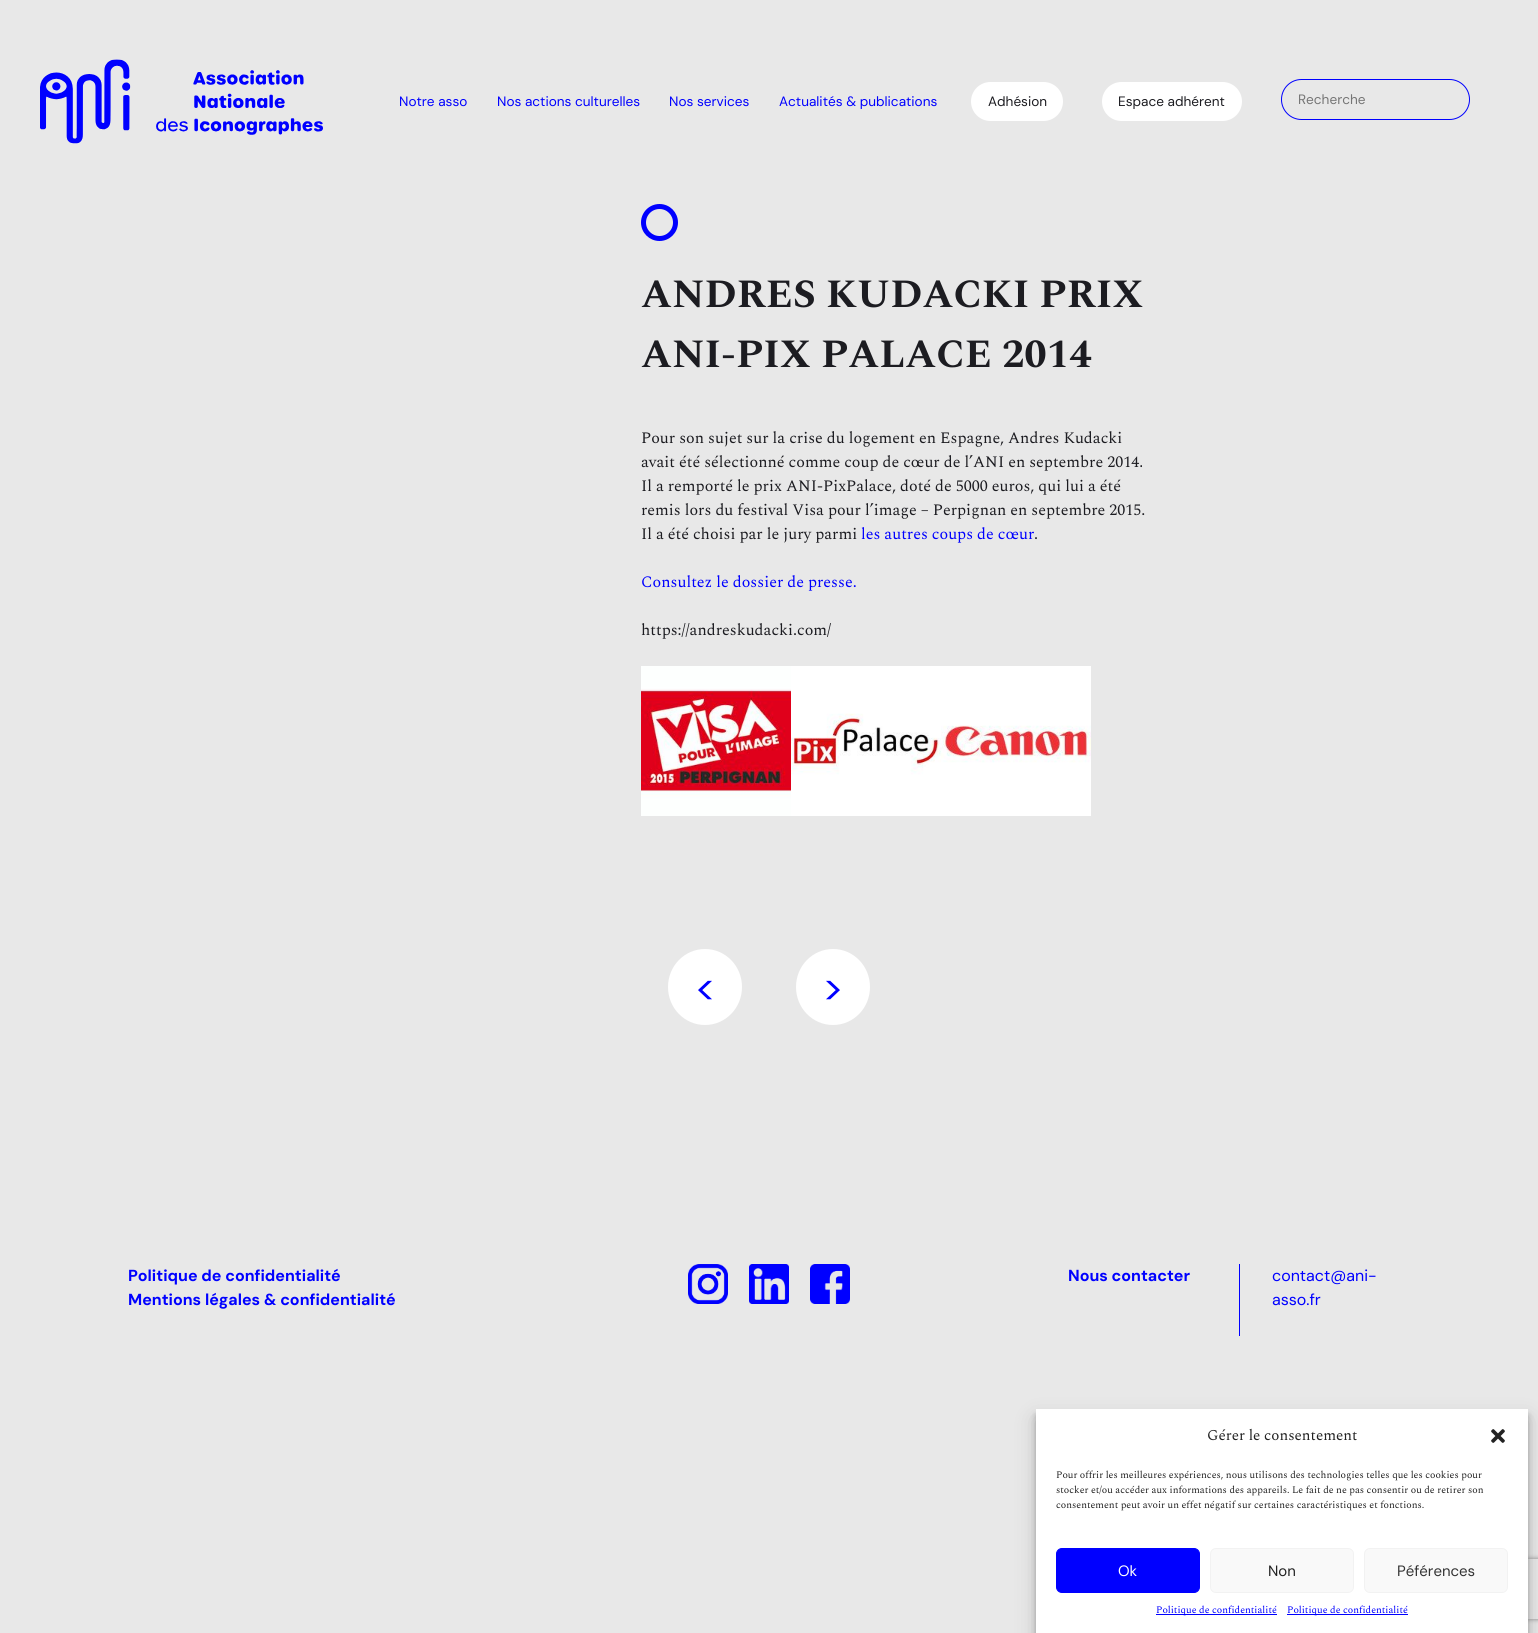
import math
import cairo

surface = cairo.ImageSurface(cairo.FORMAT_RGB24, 1538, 1633)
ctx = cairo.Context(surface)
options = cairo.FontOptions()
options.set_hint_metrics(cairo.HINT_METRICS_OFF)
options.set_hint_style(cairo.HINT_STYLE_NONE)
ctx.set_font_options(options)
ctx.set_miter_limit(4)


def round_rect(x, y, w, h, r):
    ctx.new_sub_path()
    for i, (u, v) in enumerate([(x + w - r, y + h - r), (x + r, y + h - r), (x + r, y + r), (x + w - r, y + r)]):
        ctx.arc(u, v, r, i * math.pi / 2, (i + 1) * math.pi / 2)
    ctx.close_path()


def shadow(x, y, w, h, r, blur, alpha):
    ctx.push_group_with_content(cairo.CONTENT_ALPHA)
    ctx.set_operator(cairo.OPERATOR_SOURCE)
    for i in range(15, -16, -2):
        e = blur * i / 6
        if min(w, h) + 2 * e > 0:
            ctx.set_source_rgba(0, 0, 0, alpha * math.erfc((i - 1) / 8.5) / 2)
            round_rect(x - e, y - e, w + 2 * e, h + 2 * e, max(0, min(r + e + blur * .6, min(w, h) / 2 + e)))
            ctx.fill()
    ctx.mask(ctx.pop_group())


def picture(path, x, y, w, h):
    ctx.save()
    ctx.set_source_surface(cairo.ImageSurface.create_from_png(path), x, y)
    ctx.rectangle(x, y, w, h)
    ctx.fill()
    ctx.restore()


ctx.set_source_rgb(0.91, 0.91, 0.91)
ctx.paint()
picture("img1.png", 40, 59, 283, 85)
ctx.select_font_face("DM Sans")
ctx.set_font_size(13.6)
ctx.set_source_rgb(0, 0, 1)
ctx.move_to(399, 106)
ctx.show_text("Notre asso")
ctx.move_to(497, 106)
ctx.show_text("Nos actions culturelles")
ctx.move_to(669, 106)
ctx.show_text("Nos services")
ctx.move_to(779, 106)
ctx.show_text("Actualités & publications")
ctx.set_source_rgb(1, 1, 1)
round_rect(971, 82, 92, 39, 19.5)
ctx.fill()
ctx.set_source_rgb(0.11, 0.11, 0.129)
ctx.move_to(988, 106)
ctx.show_text("Adhésion")
ctx.set_source_rgb(1, 1, 1)
round_rect(1102, 82, 140, 39, 19.5)
ctx.fill()
ctx.set_source_rgb(0.11, 0.11, 0.129)
ctx.move_to(1118, 106)
ctx.show_text("Espace adhérent")
round_rect(1281.5, 79.5, 188, 40, 20)
ctx.set_source_rgb(0, 0, 1)
ctx.set_line_width(1)
ctx.stroke()
ctx.set_source_rgb(0.459, 0.459, 0.459)
ctx.move_to(1298, 104)
ctx.show_text("Recherche")
ctx.new_path()
ctx.arc(659.5, 222.5, 16, 0, 2 * math.pi)
ctx.set_source_rgb(0, 0, 1)
ctx.set_line_width(5)
ctx.stroke()
ctx.select_font_face("Spectral", cairo.FONT_SLANT_NORMAL, cairo.FONT_WEIGHT_BOLD)
ctx.set_font_size(40)
ctx.set_source_rgb(0.11, 0.11, 0.129)
ctx.move_to(641, 307)
ctx.show_text("ANDRES KUDACKI PRIX")
ctx.move_to(641, 367)
ctx.show_text("ANI-PIX PALACE 2014")
ctx.select_font_face("Spectral")
ctx.set_font_size(16)
ctx.move_to(641, 443)
ctx.show_text("Pour son sujet sur la crise du logement en Espagne, Andres Kudacki")
ctx.move_to(641, 467)
ctx.show_text("avait été sélectionné comme coup de cœur de l’ANI en septembre 2014.")
ctx.move_to(641, 491)
ctx.show_text("Il a remporté le prix ANI-PixPalace, doté de 5000 euros, qui lui a été")
ctx.move_to(641, 515)
ctx.show_text("remis lors du festival Visa pour l’image – Perpignan en septembre 2015.")
ctx.move_to(641, 539)
ctx.show_text("Il a été choisi par le jury parmi")
ctx.set_source_rgb(0, 0, 1)
ctx.move_to(861, 539)
ctx.show_text("les autres coups de cœur")
ctx.set_source_rgb(0.11, 0.11, 0.129)
ctx.move_to(1034, 539)
ctx.show_text(".")
ctx.set_source_rgb(0, 0, 1)
ctx.move_to(641, 587)
ctx.show_text("Consultez le dossier de presse.")
ctx.set_source_rgb(0.11, 0.11, 0.129)
ctx.move_to(641, 635)
ctx.show_text("https://andreskudacki.com/")
picture("img2.png", 641, 666, 150, 150)
picture("img3.png", 791, 666, 150, 150)
picture("img4.png", 941, 666, 150, 150)
ctx.set_source_rgb(1, 1, 1)
ctx.new_path()
ctx.move_to(705, 949)
ctx.curve_to(725.5, 949, 742, 966, 742, 987)
ctx.curve_to(742, 1008, 725.5, 1025, 705, 1025)
ctx.curve_to(684.5, 1025, 668, 1008, 668, 987)
ctx.curve_to(668, 966, 684.5, 949, 705, 949)
ctx.close_path()
ctx.fill()
ctx.select_font_face("DM Sans")
ctx.set_font_size(40)
ctx.set_source_rgb(0, 0, 1)
ctx.move_to(694, 1001)
ctx.show_text("<")
ctx.set_source_rgb(1, 1, 1)
ctx.new_path()
ctx.move_to(833, 949)
ctx.curve_to(853.5, 949, 870, 966, 870, 987)
ctx.curve_to(870, 1008, 853.5, 1025, 833, 1025)
ctx.curve_to(812.5, 1025, 796, 1008, 796, 987)
ctx.curve_to(796, 966, 812.5, 949, 833, 949)
ctx.close_path()
ctx.fill()
ctx.set_source_rgb(0, 0, 1)
ctx.move_to(822, 1001)
ctx.show_text(">")
ctx.select_font_face("DM Sans", cairo.FONT_SLANT_NORMAL, cairo.FONT_WEIGHT_BOLD)
ctx.set_font_size(16)
ctx.move_to(128, 1281)
ctx.show_text("Politique de confidentialité")
ctx.move_to(128, 1305)
ctx.show_text("Mentions légales & confidentialité")
picture("img5.png", 688, 1264, 40, 40)
picture("img6.png", 749, 1264, 40, 40)
picture("img7.png", 810, 1264, 40, 40)
ctx.move_to(1068, 1281)
ctx.show_text("Nous contacter")
ctx.rectangle(1239, 1264, 1, 72)
ctx.fill()
ctx.select_font_face("DM Sans")
ctx.move_to(1272, 1281)
ctx.show_text("contact@ani-")
ctx.move_to(1272, 1305)
ctx.show_text("asso.fr")
ctx.set_source_rgb(0, 0, 0)
shadow(1036, 1415, 492, 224, 0, 3, 0.23)
shadow(1036, 1419, 492, 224, 0, 10, 0.19)
ctx.save()
ctx.set_fill_rule(cairo.FILL_RULE_EVEN_ODD)
ctx.new_path()
ctx.move_to(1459, 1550)
ctx.line_to(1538, 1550)
ctx.line_to(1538, 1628)
ctx.line_to(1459, 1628)
ctx.close_path()
ctx.move_to(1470, 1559)
ctx.line_to(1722, 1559)
ctx.curve_to(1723, 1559, 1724, 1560, 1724, 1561)
ctx.line_to(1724, 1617)
ctx.curve_to(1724, 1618, 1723, 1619, 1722, 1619)
ctx.line_to(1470, 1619)
ctx.curve_to(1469, 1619, 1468, 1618, 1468, 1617)
ctx.line_to(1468, 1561)
ctx.curve_to(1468, 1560, 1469, 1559, 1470, 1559)
ctx.close_path()
ctx.clip()
ctx.set_source_rgb(0.502, 0.502, 0.502)
shadow(1468, 1559, 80, 60, 2, 2.5, 1)
ctx.restore()
ctx.set_source_rgb(1, 1, 1)
ctx.rectangle(1036, 1409, 492, 224)
ctx.fill()
ctx.select_font_face("Spectral")
ctx.set_font_size(15)
ctx.set_source_rgb(0.133, 0.133, 0.133)
ctx.move_to(1207, 1440)
ctx.show_text("Gérer le consentement")
picture("img8.png", 1491, 1429, 14, 14)
ctx.set_font_size(10)
ctx.move_to(1056, 1478)
ctx.show_text("Pour offrir les meilleures expériences, nous utilisons des technologies telles que les cookies pour")
ctx.move_to(1056, 1493)
ctx.show_text("stocker et/ou accéder aux informations des appareils. Le fait de ne pas consentir ou de retirer son")
ctx.move_to(1056, 1508)
ctx.show_text("consentement peut avoir un effet négatif sur certaines caractéristiques et fonctions.")
ctx.set_source_rgb(0, 0, 1)
round_rect(1056.5, 1548.5, 143, 44, 5.5)
ctx.fill_preserve()
ctx.set_line_width(1)
ctx.stroke()
ctx.select_font_face("DM Sans")
ctx.set_font_size(15)
ctx.set_source_rgb(1, 1, 1)
ctx.move_to(1118, 1576)
ctx.show_text("Ok")
ctx.set_source_rgb(0.976, 0.976, 0.976)
round_rect(1210.5, 1548.5, 143, 44, 5.5)
ctx.fill_preserve()
ctx.set_source_rgb(0.949, 0.949, 0.949)
ctx.stroke()
ctx.set_source_rgb(0.133, 0.133, 0.133)
ctx.move_to(1268, 1576)
ctx.show_text("Non")
ctx.set_source_rgb(0.976, 0.976, 0.976)
round_rect(1364.5, 1548.5, 143, 44, 5.5)
ctx.fill_preserve()
ctx.set_source_rgb(0.949, 0.949, 0.949)
ctx.stroke()
ctx.set_source_rgb(0.2, 0.2, 0.2)
ctx.move_to(1397, 1576)
ctx.show_text("Péférences")
ctx.set_source_rgb(0, 0, 1)
ctx.rectangle(1156, 1614, 121, 1)
ctx.fill()
ctx.select_font_face("Spectral")
ctx.set_font_size(10)
ctx.move_to(1156, 1613)
ctx.show_text("Politique de confidentialité")
ctx.rectangle(1287, 1614, 121, 1)
ctx.fill()
ctx.move_to(1287, 1613)
ctx.show_text("Politique de confidentialité")
surface.write_to_png("page.png")
